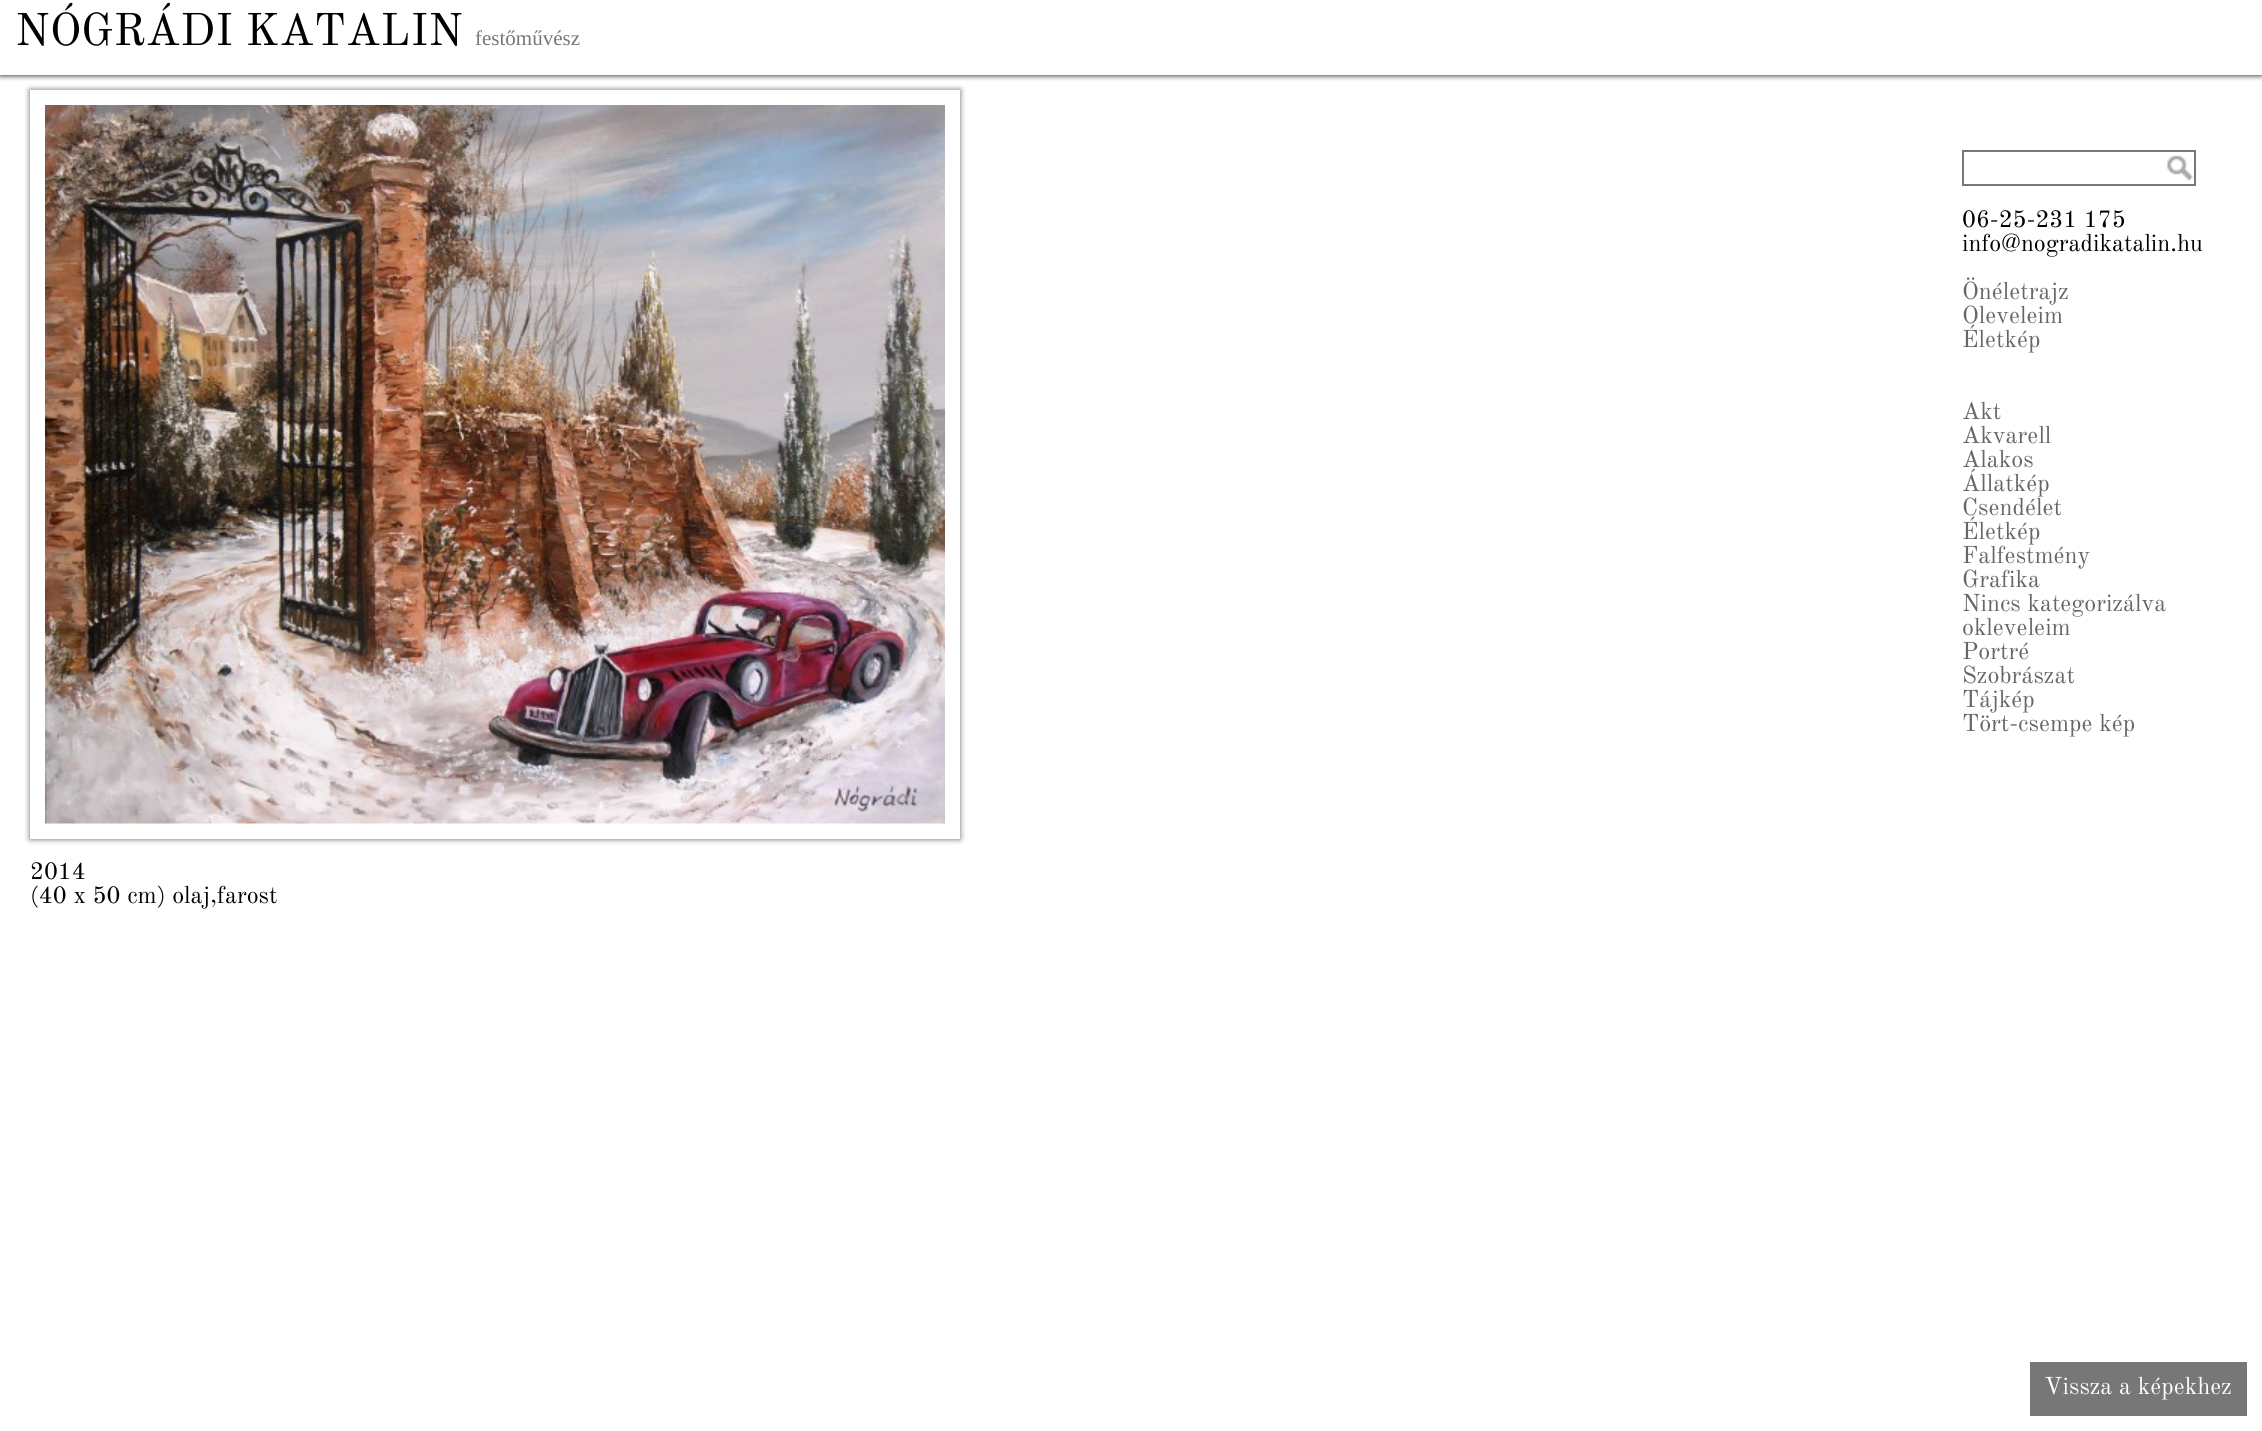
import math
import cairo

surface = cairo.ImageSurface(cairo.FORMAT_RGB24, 2262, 1431)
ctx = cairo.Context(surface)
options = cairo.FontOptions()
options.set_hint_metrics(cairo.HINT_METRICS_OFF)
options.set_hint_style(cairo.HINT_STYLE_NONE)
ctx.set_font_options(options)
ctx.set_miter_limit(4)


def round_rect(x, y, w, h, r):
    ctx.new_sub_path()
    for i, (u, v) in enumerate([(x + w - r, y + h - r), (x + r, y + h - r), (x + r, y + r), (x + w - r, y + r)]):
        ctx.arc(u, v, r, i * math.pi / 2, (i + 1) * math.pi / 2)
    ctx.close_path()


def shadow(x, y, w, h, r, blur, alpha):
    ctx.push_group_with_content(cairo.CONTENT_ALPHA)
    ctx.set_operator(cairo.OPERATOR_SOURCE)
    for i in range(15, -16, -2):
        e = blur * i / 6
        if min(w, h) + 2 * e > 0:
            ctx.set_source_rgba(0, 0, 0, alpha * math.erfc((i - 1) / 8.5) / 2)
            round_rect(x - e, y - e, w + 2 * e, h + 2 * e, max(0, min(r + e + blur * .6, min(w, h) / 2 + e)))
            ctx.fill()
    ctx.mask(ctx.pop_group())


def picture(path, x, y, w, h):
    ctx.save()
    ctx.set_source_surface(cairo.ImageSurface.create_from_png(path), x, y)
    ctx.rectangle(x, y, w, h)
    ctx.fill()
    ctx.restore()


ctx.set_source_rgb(1, 1, 1)
ctx.paint()
ctx.save()
ctx.rectangle(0, 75, 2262, 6)
ctx.clip()
ctx.set_source_rgb(0, 0, 0)
shadow(0, 0, 2262, 75, 0, 3, 1)
ctx.restore()
ctx.select_font_face("Old Standard TT")
ctx.set_font_size(45)
ctx.set_source_rgb(0, 0, 0)
ctx.move_to(15, 45)
ctx.show_text("NÓGRÁDI KATALIN")
ctx.select_font_face("Liberation Serif")
ctx.set_font_size(21)
ctx.set_source_rgb(0.467, 0.467, 0.467)
ctx.move_to(475, 45)
ctx.show_text("festőművész")
picture("img1.png", 2167, 155, 27, 26)
ctx.rectangle(1963, 151, 232, 34)
ctx.stroke()
ctx.select_font_face("Old Standard TT")
ctx.set_font_size(24)
ctx.set_source_rgb(0, 0, 0)
ctx.move_to(1962, 227)
ctx.show_text("06-25-231 175")
ctx.move_to(1962, 251)
ctx.show_text("info@nogradikatalin.hu")
ctx.set_source_rgb(0.4, 0.4, 0.4)
ctx.move_to(1962, 299)
ctx.show_text("Önéletrajz")
ctx.move_to(1962, 323)
ctx.show_text("Oleveleim")
ctx.move_to(1962, 347)
ctx.show_text("Életkép")
ctx.move_to(1962, 419)
ctx.show_text("Akt")
ctx.move_to(1962, 443)
ctx.show_text("Akvarell")
ctx.move_to(1962, 467)
ctx.show_text("Alakos")
ctx.move_to(1962, 491)
ctx.show_text("Állatkép")
ctx.move_to(1962, 515)
ctx.show_text("Csendélet")
ctx.move_to(1962, 539)
ctx.show_text("Életkép")
ctx.move_to(1962, 563)
ctx.show_text("Falfestmény")
ctx.move_to(1962, 587)
ctx.show_text("Grafika")
ctx.move_to(1962, 611)
ctx.show_text("Nincs kategorizálva")
ctx.move_to(1962, 635)
ctx.show_text("okleveleim")
ctx.move_to(1962, 659)
ctx.show_text("Portré")
ctx.move_to(1962, 683)
ctx.show_text("Szobrászat")
ctx.move_to(1962, 707)
ctx.show_text("Tájkép")
ctx.move_to(1962, 731)
ctx.show_text("Tört-csempe kép")
ctx.set_source_rgb(0.4, 0.4, 0.4)
shadow(30, 90, 930, 749, 0, 3, 1)
ctx.set_source_rgb(1, 1, 1)
ctx.rectangle(30, 90, 930, 749)
ctx.fill()
picture("img2.png", 45, 105, 900, 719)
ctx.set_source_rgb(0, 0, 0)
ctx.move_to(30, 879)
ctx.show_text("2014")
ctx.move_to(30, 903)
ctx.show_text("(40 x 50 cm) olaj,farost")
ctx.set_source_rgb(0.467, 0.467, 0.467)
ctx.rectangle(2030, 1362, 217, 54)
ctx.fill()
ctx.set_source_rgb(1, 1, 1)
ctx.move_to(2044, 1394)
ctx.show_text("Vissza a képekhez")
surface.write_to_png("page.png")
